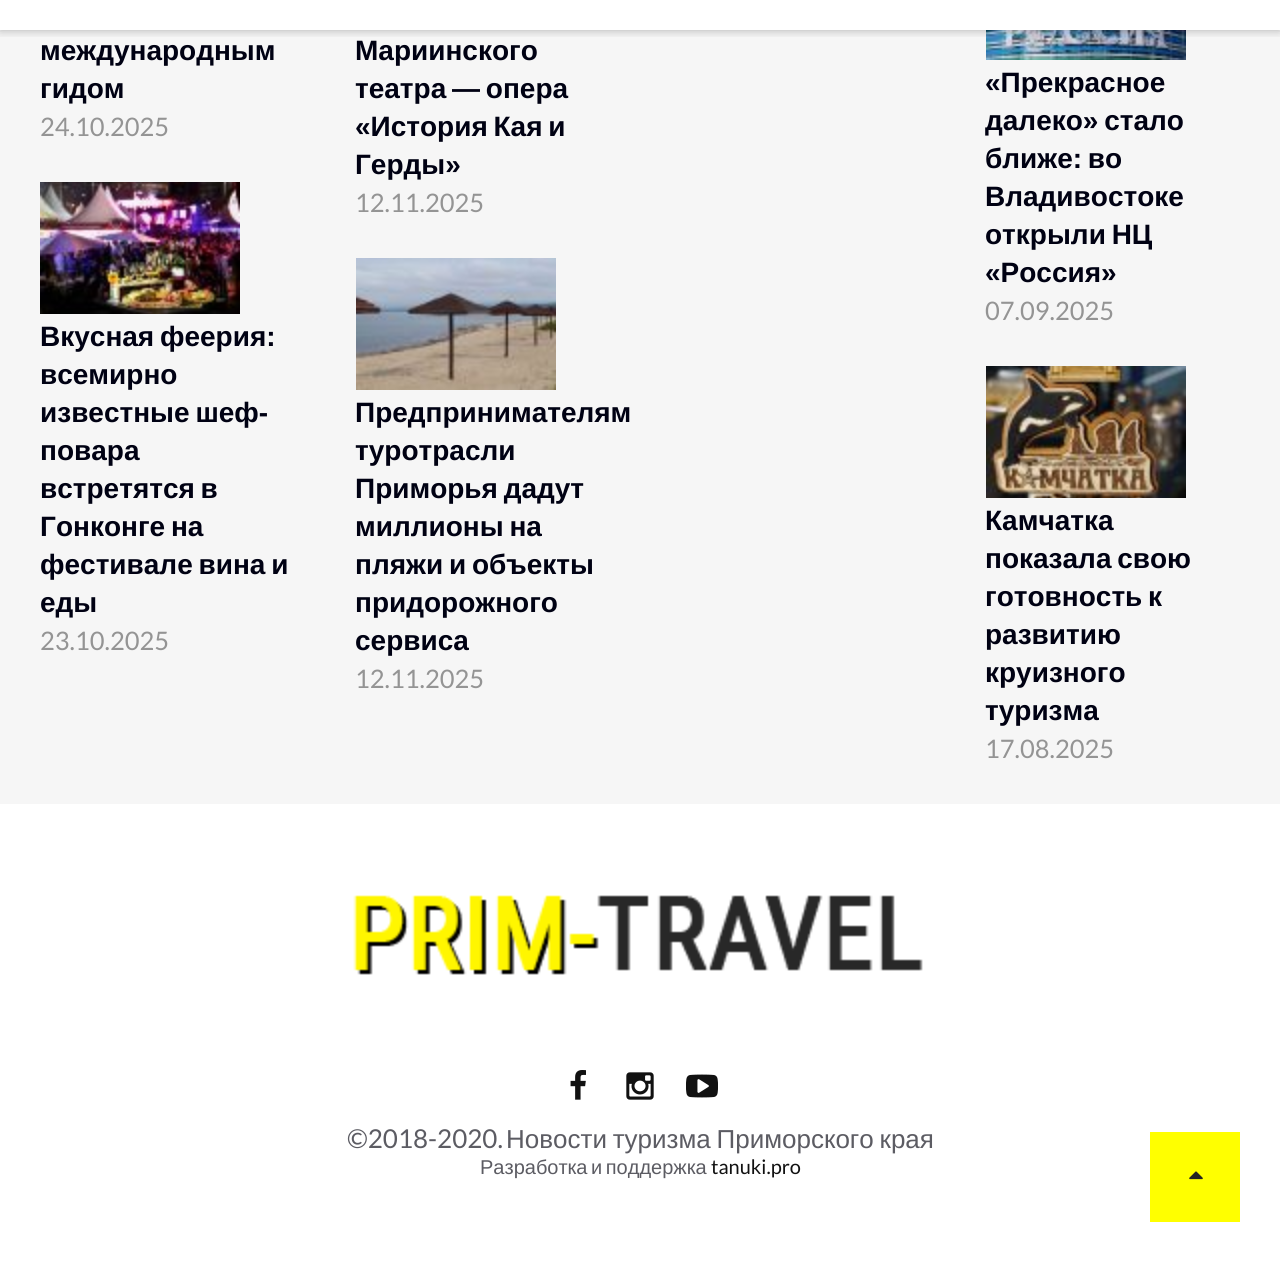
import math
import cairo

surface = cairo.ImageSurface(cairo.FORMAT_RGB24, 1280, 1262)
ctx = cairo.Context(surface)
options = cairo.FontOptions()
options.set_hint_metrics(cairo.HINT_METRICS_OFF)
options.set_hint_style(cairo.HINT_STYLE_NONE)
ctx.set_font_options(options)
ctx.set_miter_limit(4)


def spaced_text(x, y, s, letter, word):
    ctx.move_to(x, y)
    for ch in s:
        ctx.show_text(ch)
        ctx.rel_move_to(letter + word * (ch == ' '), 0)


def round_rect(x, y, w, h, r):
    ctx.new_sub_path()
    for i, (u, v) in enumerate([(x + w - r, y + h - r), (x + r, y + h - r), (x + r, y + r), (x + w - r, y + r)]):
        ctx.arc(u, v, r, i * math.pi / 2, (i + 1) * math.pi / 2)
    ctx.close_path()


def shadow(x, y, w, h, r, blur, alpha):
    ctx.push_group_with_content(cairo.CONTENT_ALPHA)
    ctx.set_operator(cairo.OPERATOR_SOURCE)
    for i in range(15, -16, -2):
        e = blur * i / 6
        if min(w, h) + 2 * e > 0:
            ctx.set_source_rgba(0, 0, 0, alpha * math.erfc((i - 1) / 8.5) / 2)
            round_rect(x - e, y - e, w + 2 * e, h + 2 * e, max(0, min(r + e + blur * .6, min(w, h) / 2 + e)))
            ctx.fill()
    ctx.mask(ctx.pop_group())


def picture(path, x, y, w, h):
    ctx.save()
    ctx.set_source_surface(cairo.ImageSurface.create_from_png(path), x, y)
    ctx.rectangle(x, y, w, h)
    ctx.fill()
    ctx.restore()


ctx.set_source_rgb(1, 1, 1)
ctx.paint()
ctx.set_source_rgb(0.961, 0.961, 0.961)
ctx.rectangle(0, 30, 1280, 774)
ctx.fill()
picture("img3.png", 986, 30, 200, 30)
ctx.save()
ctx.rectangle(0, 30, 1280, 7)
ctx.clip()
ctx.set_source_rgb(0, 0, 0)
shadow(0, -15, 1280, 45, 0, 5, 0.3)
ctx.restore()
ctx.select_font_face("Liberation Sans", cairo.FONT_SLANT_NORMAL, cairo.FONT_WEIGHT_BOLD)
ctx.set_font_size(28)
ctx.set_source_rgb(0, 0.004, 0.075)
ctx.move_to(40, 60)
ctx.show_text("международным")
ctx.move_to(40, 98)
ctx.show_text("гидом")
ctx.select_font_face("Lato")
ctx.set_font_size(25.5)
ctx.set_source_rgb(0.58, 0.58, 0.58)
ctx.move_to(40, 136)
ctx.show_text("24.10.2025")
picture("img1.png", 40, 182, 200, 132)
ctx.select_font_face("Liberation Sans", cairo.FONT_SLANT_NORMAL, cairo.FONT_WEIGHT_BOLD)
ctx.set_font_size(28)
ctx.set_source_rgb(0, 0.004, 0.075)
spaced_text(40, 346, "Вкусная феерия:", 0, -2)
ctx.move_to(40, 384)
ctx.show_text("всемирно")
spaced_text(40, 422, "известные шеф-", 0, -2)
ctx.move_to(40, 460)
ctx.show_text("повара")
spaced_text(40, 498, "встретятся в", 0, -2)
spaced_text(40, 536, "Гонконге на", 0, -2)
spaced_text(40, 574, "фестивале вина и", 0, -2)
ctx.move_to(40, 612)
ctx.show_text("еды")
ctx.select_font_face("Lato")
ctx.set_font_size(25.5)
ctx.set_source_rgb(0.58, 0.58, 0.58)
ctx.move_to(40, 650)
ctx.show_text("23.10.2025")
ctx.select_font_face("Liberation Sans", cairo.FONT_SLANT_NORMAL, cairo.FONT_WEIGHT_BOLD)
ctx.set_font_size(28)
ctx.set_source_rgb(0, 0.004, 0.075)
ctx.move_to(355, 60)
ctx.show_text("Мариинского")
spaced_text(355, 98, "театра — опера", 0, -2)
spaced_text(355, 136, "«История Кая и", 0, -2)
ctx.move_to(355, 174)
ctx.show_text("Герды»")
ctx.select_font_face("Lato")
ctx.set_font_size(25.5)
ctx.set_source_rgb(0.58, 0.58, 0.58)
ctx.move_to(355, 212)
ctx.show_text("12.11.2025")
picture("img2.png", 356, 258, 200, 132)
ctx.select_font_face("Liberation Sans", cairo.FONT_SLANT_NORMAL, cairo.FONT_WEIGHT_BOLD)
ctx.set_font_size(28)
ctx.set_source_rgb(0, 0.004, 0.075)
ctx.move_to(355, 422)
ctx.show_text("Предпринимателям")
ctx.move_to(355, 460)
ctx.show_text("туротрасли")
spaced_text(355, 498, "Приморья дадут", 0, -2)
spaced_text(355, 536, "миллионы на", 0, -2)
spaced_text(355, 574, "пляжи и объекты", 0, -2)
ctx.move_to(355, 612)
ctx.show_text("придорожного")
ctx.move_to(355, 650)
ctx.show_text("сервиса")
ctx.select_font_face("Lato")
ctx.set_font_size(25.5)
ctx.set_source_rgb(0.58, 0.58, 0.58)
ctx.move_to(355, 688)
ctx.show_text("12.11.2025")
ctx.select_font_face("Liberation Sans", cairo.FONT_SLANT_NORMAL, cairo.FONT_WEIGHT_BOLD)
ctx.set_font_size(28)
ctx.set_source_rgb(0, 0.004, 0.075)
ctx.move_to(985, 92)
ctx.show_text("«Прекрасное")
spaced_text(985, 130, "далеко» стало", 0, -2)
spaced_text(985, 168, "ближе: во", 0, -2)
ctx.move_to(985, 206)
ctx.show_text("Владивостоке")
spaced_text(985, 244, "открыли НЦ", 0, -2)
ctx.move_to(985, 282)
ctx.show_text("«Россия»")
ctx.select_font_face("Lato")
ctx.set_font_size(25.5)
ctx.set_source_rgb(0.58, 0.58, 0.58)
ctx.move_to(985, 320)
ctx.show_text("07.09.2025")
picture("img4.png", 986, 366, 200, 132)
ctx.select_font_face("Liberation Sans", cairo.FONT_SLANT_NORMAL, cairo.FONT_WEIGHT_BOLD)
ctx.set_font_size(28)
ctx.set_source_rgb(0, 0.004, 0.075)
ctx.move_to(985, 530)
ctx.show_text("Камчатка")
spaced_text(985, 568, "показала свою", 0, -2)
spaced_text(985, 606, "готовность к", 0, -2)
ctx.move_to(985, 644)
ctx.show_text("развитию")
ctx.move_to(985, 682)
ctx.show_text("круизного")
ctx.move_to(985, 720)
ctx.show_text("туризма")
ctx.select_font_face("Lato")
ctx.set_font_size(25.5)
ctx.set_source_rgb(0.58, 0.58, 0.58)
ctx.move_to(985, 758)
ctx.show_text("17.08.2025")
picture("img5.png", 353, 895, 570, 80)
picture("img6.png", 570, 1070, 16, 30)
picture("img7.png", 626, 1072, 28, 28)
picture("img8.png", 686, 1074, 32, 24)
ctx.set_font_size(26)
ctx.set_source_rgb(0.361, 0.361, 0.388)
ctx.move_to(347, 1148)
ctx.show_text("©2018-2020.")
ctx.select_font_face("Liberation Sans")
spaced_text(506, 1148, "Новости туризма Приморского края", 0, -1.5)
ctx.set_font_size(20)
spaced_text(480, 1174, "Разработка и поддержка", 0, -2)
ctx.select_font_face("Lato")
ctx.set_source_rgb(0.067, 0.067, 0.067)
ctx.move_to(711, 1174)
ctx.show_text("tanuki.pro")
ctx.set_source_rgb(1, 1, 0)
ctx.rectangle(1150, 1132, 90, 90)
ctx.fill()
picture("img9.png", 1189, 1171, 14, 9)
surface.write_to_png("page.png")
